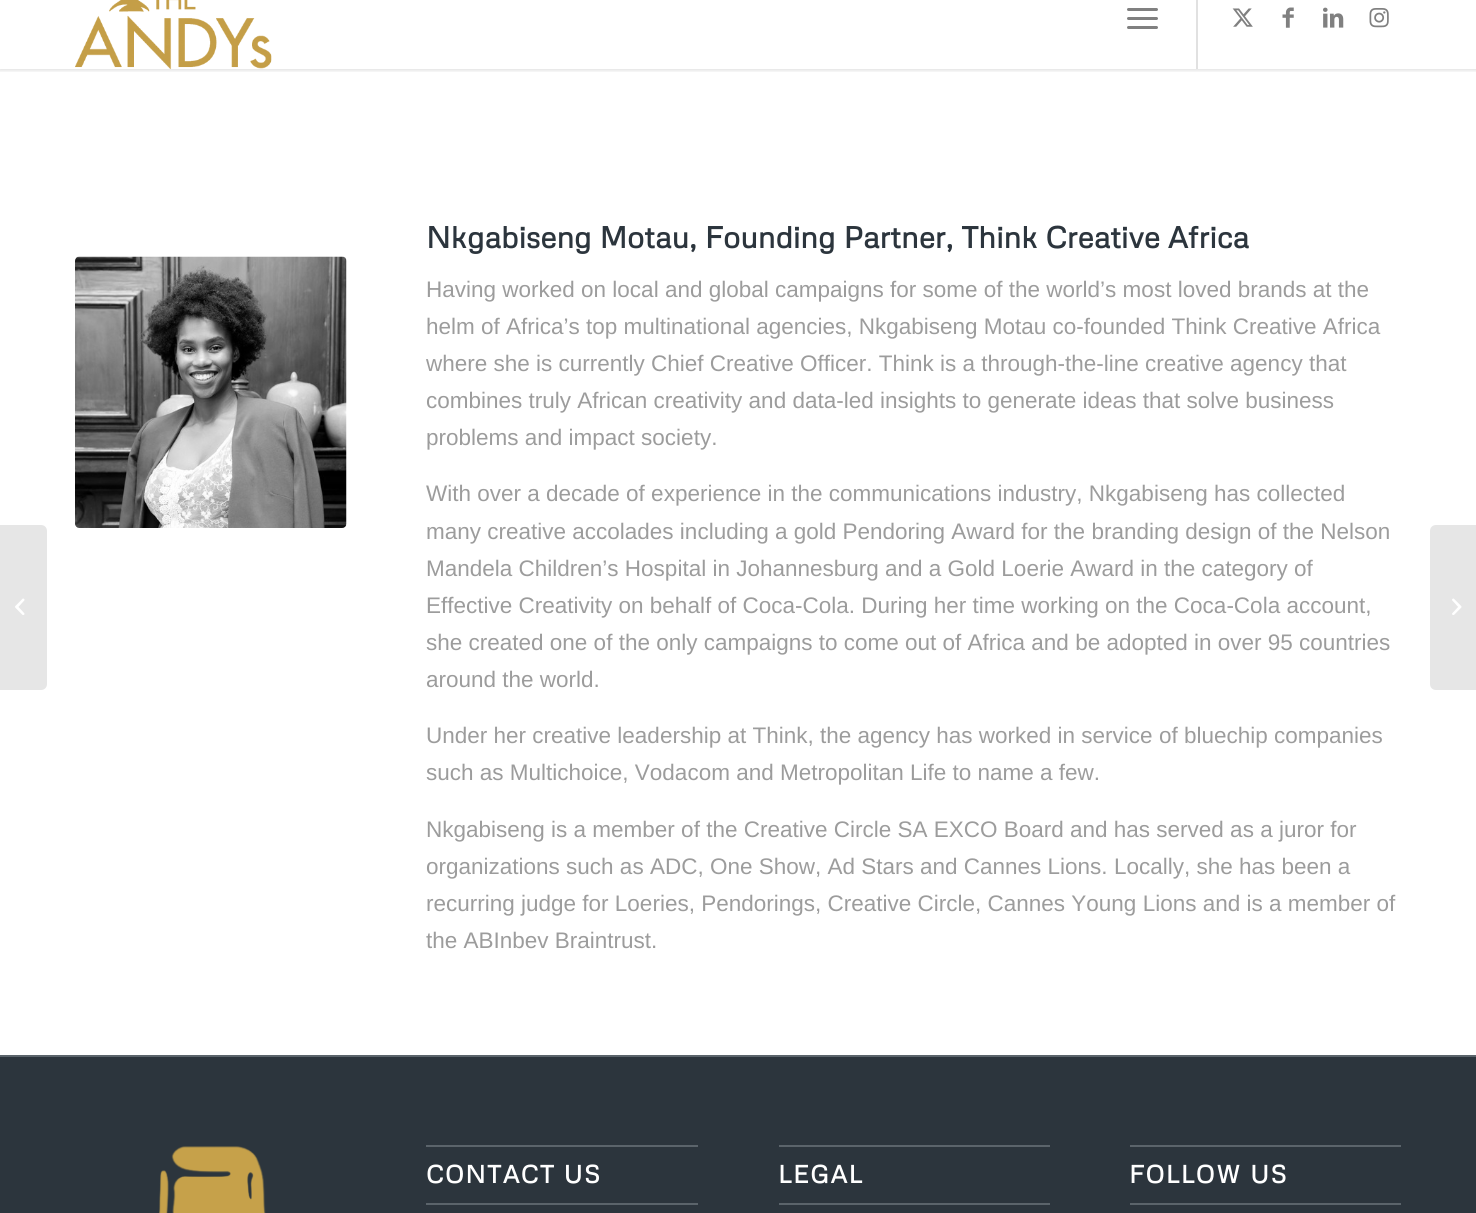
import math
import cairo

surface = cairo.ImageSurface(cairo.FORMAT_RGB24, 1476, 1213)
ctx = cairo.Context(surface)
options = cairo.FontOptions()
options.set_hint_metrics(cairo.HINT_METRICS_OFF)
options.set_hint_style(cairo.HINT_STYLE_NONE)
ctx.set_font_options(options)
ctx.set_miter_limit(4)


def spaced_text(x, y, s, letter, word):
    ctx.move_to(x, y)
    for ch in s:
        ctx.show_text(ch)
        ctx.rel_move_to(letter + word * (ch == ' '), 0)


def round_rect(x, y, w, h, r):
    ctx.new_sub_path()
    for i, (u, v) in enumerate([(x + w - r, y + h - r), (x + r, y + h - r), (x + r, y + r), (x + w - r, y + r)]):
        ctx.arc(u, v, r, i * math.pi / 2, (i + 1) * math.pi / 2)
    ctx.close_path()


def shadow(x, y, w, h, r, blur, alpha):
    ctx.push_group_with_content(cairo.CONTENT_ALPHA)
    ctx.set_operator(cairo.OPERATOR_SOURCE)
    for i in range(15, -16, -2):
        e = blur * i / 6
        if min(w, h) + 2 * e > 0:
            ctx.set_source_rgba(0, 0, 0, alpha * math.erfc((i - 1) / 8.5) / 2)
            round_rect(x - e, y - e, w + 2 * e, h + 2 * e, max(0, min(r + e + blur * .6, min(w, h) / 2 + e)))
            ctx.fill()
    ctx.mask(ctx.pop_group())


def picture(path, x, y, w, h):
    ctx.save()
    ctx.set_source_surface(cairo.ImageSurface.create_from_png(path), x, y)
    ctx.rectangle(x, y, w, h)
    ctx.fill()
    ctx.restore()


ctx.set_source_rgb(1, 1, 1)
ctx.paint()
ctx.save()
ctx.rectangle(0, 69, 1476, 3)
ctx.clip()
ctx.set_source_rgb(0, 0, 0)
shadow(-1, -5, 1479, 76, 0, 1.5, 0.1)
ctx.restore()
picture("img1.png", 75, 0, 197, 69)
ctx.set_source_rgb(0.882, 0.882, 0.882)
ctx.rectangle(1196, 0, 2, 69)
ctx.fill()
ctx.set_source_rgb(0.502, 0.502, 0.502)
round_rect(1127, 17, 31, 3, 1.5)
ctx.fill()
round_rect(1127, 8, 31, 3, 1.5)
ctx.fill()
round_rect(1127, 26, 31, 3, 1.5)
ctx.fill()
picture("img2.png", 1232, 8, 21, 19)
picture("img3.png", 1282, 7, 12, 21)
picture("img4.png", 1323, 7, 21, 21)
picture("img5.png", 1369, 8, 20, 20)
ctx.set_source_rgb(0.902, 0.902, 0.902)
ctx.new_path()
ctx.move_to(0, 525)
ctx.line_to(41, 525)
ctx.curve_to(44.5, 525, 47, 527.5, 47, 531)
ctx.line_to(47, 684)
ctx.curve_to(47, 687.5, 44.5, 690, 41, 690)
ctx.line_to(0, 690)
ctx.close_path()
ctx.fill()
picture("img6.png", 15, 598, 10, 17)
picture("img7.png", 75, 256, 272, 272)
ctx.select_font_face("Metrophobic", cairo.FONT_SLANT_NORMAL, cairo.FONT_WEIGHT_BOLD)
ctx.set_font_size(30)
ctx.set_source_rgb(0.173, 0.208, 0.239)
ctx.move_to(426, 248)
ctx.show_text("Nkgabiseng Motau, Founding Partner, Think Creative Africa")
ctx.select_font_face("Liberation Sans")
ctx.set_font_size(22.5)
ctx.set_source_rgb(0.612, 0.612, 0.612)
ctx.move_to(426, 297)
ctx.show_text("Having worked on local and global campaigns for some of the world’s most loved brands at the")
ctx.move_to(426, 334)
ctx.show_text("helm of Africa’s top multinational agencies, Nkgabiseng Motau co-founded Think Creative Africa")
ctx.move_to(426, 371)
ctx.show_text("where she is currently Chief Creative Officer. Think is a through-the-line creative agency that")
ctx.move_to(426, 408)
ctx.show_text("combines truly African creativity and data-led insights to generate ideas that solve business")
ctx.move_to(426, 445)
ctx.show_text("problems and impact society.")
ctx.move_to(426, 501)
ctx.show_text("With over a decade of experience in the communications industry, Nkgabiseng has collected")
ctx.move_to(426, 539)
ctx.show_text("many creative accolades including a gold Pendoring Award for the branding design of the Nelson")
ctx.move_to(426, 576)
ctx.show_text("Mandela Children’s Hospital in Johannesburg and a Gold Loerie Award in the category of")
ctx.move_to(426, 613)
ctx.show_text("Effective Creativity on behalf of Coca-Cola. During her time working on the Coca-Cola account,")
ctx.move_to(426, 650)
ctx.show_text("she created one of the only campaigns to come out of Africa and be adopted in over 95 countries")
ctx.move_to(426, 687)
ctx.show_text("around the world.")
ctx.move_to(426, 743)
ctx.show_text("Under her creative leadership at Think, the agency has worked in service of bluechip companies")
ctx.move_to(426, 780)
ctx.show_text("such as Multichoice, Vodacom and Metropolitan Life to name a few.")
ctx.move_to(426, 837)
ctx.show_text("Nkgabiseng is a member of the Creative Circle SA EXCO Board and has served as a juror for")
ctx.move_to(426, 874)
ctx.show_text("organizations such as ADC, One Show, Ad Stars and Cannes Lions. Locally, she has been a")
ctx.move_to(426, 911)
ctx.show_text("recurring judge for Loeries, Pendorings, Creative Circle, Cannes Young Lions and is a member of")
ctx.move_to(426, 948)
ctx.show_text("the ABInbev Braintrust.")
ctx.set_source_rgb(0.173, 0.208, 0.239)
ctx.rectangle(0, 1057, 1476, 156)
ctx.fill()
ctx.set_source_rgb(0.357, 0.392, 0.42)
ctx.rectangle(0, 1055, 1476, 2)
ctx.fill()
picture("img8.png", 159, 1146, 107, 67)
ctx.rectangle(426, 1145, 272, 2)
ctx.fill()
ctx.rectangle(426, 1203, 272, 2)
ctx.fill()
ctx.select_font_face("Metrophobic", cairo.FONT_SLANT_NORMAL, cairo.FONT_WEIGHT_BOLD)
ctx.set_font_size(24.75)
ctx.set_source_rgb(1, 1, 1)
spaced_text(426, 1183, "CONTACT US", 1.5, 0)
ctx.set_source_rgb(0.357, 0.392, 0.42)
ctx.rectangle(779, 1145, 271, 2)
ctx.fill()
ctx.rectangle(779, 1203, 271, 2)
ctx.fill()
ctx.set_source_rgb(1, 1, 1)
spaced_text(778, 1183, "LEGAL", 1.5, 0)
ctx.set_source_rgb(0.357, 0.392, 0.42)
ctx.rectangle(1130, 1145, 271, 2)
ctx.fill()
ctx.rectangle(1130, 1203, 271, 2)
ctx.fill()
ctx.set_source_rgb(1, 1, 1)
spaced_text(1129, 1183, "FOLLOW US", 1.5, 0)
ctx.set_source_rgb(0.902, 0.902, 0.902)
ctx.new_path()
ctx.move_to(1436, 525)
ctx.line_to(1476, 525)
ctx.line_to(1476, 690)
ctx.line_to(1436, 690)
ctx.curve_to(1432.5, 690, 1430, 687.5, 1430, 684)
ctx.line_to(1430, 531)
ctx.curve_to(1430, 527.5, 1432.5, 525, 1436, 525)
ctx.close_path()
ctx.fill()
picture("img9.png", 1452, 598, 10, 17)
surface.write_to_png("page.png")
